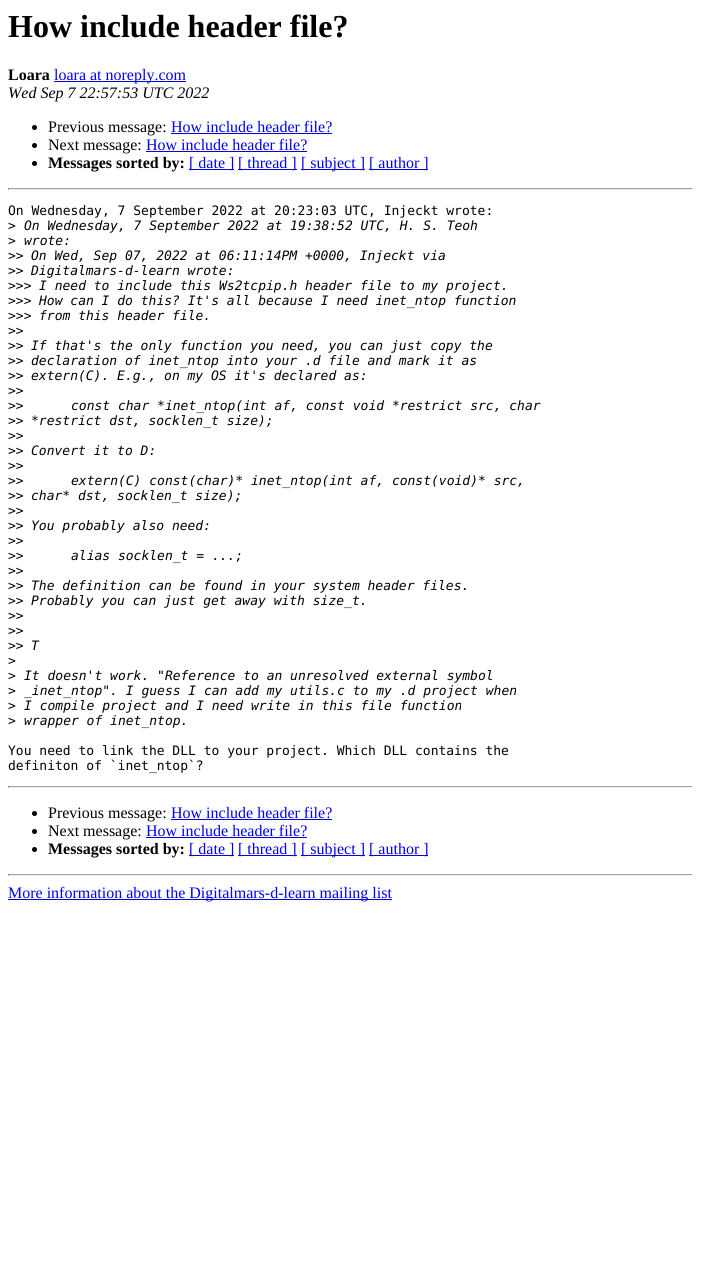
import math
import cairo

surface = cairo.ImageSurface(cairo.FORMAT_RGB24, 701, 1269)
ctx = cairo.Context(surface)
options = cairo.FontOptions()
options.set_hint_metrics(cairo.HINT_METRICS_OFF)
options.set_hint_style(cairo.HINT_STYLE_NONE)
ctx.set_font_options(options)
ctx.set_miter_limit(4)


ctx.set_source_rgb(1, 1, 1)
ctx.paint()
ctx.select_font_face("Liberation Serif", cairo.FONT_SLANT_NORMAL, cairo.FONT_WEIGHT_BOLD)
ctx.set_font_size(32)
ctx.set_source_rgb(0, 0, 0)
ctx.move_to(8, 37)
ctx.show_text("How include header file?")
ctx.set_font_size(16)
ctx.move_to(8, 80)
ctx.show_text("Loara")
ctx.set_source_rgb(0, 0, 0.933)
ctx.rectangle(54, 81, 132, 1)
ctx.fill()
ctx.select_font_face("Liberation Serif")
ctx.move_to(54, 80)
ctx.show_text("loara at noreply.com")
ctx.select_font_face("Liberation Serif", cairo.FONT_SLANT_ITALIC)
ctx.set_source_rgb(0, 0, 0)
ctx.move_to(8, 98)
ctx.show_text("Wed Sep 7 22:57:53 UTC 2022")
ctx.new_path()
ctx.arc(34.5, 127.5, 2.5, 0, 2 * math.pi)
ctx.fill()
ctx.select_font_face("Liberation Serif")
ctx.move_to(48, 132)
ctx.show_text("Previous message:")
ctx.set_source_rgb(0, 0, 0.933)
ctx.move_to(171, 132)
ctx.show_text("How include header file?")
ctx.rectangle(171, 133, 161, 1)
ctx.fill()
ctx.set_source_rgb(0, 0, 0)
ctx.arc(34.5, 145.5, 2.5, 0, 2 * math.pi)
ctx.fill()
ctx.move_to(48, 150)
ctx.show_text("Next message:")
ctx.set_source_rgb(0, 0, 0.933)
ctx.move_to(146, 150)
ctx.show_text("How include header file?")
ctx.rectangle(146, 151, 161, 1)
ctx.fill()
ctx.set_source_rgb(0, 0, 0)
ctx.arc(34.5, 163.5, 2.5, 0, 2 * math.pi)
ctx.fill()
ctx.select_font_face("Liberation Serif", cairo.FONT_SLANT_NORMAL, cairo.FONT_WEIGHT_BOLD)
ctx.move_to(48, 168)
ctx.show_text("Messages sorted by:")
ctx.set_source_rgb(0, 0, 0.933)
ctx.rectangle(189, 169, 45, 1)
ctx.fill()
ctx.select_font_face("Liberation Serif")
ctx.move_to(189, 168)
ctx.show_text("[ date ]")
ctx.rectangle(238, 169, 59, 1)
ctx.fill()
ctx.move_to(238, 168)
ctx.show_text("[ thread ]")
ctx.rectangle(301, 169, 64, 1)
ctx.fill()
ctx.move_to(301, 168)
ctx.show_text("[ subject ]")
ctx.rectangle(369, 169, 59, 1)
ctx.fill()
ctx.move_to(369, 168)
ctx.show_text("[ author ]")
ctx.set_source_rgb(0.624, 0.624, 0.624)
ctx.rectangle(8, 188, 685, 1)
ctx.fill()
ctx.set_source_rgb(0.933, 0.933, 0.933)
ctx.rectangle(692, 188, 1, 2)
ctx.fill()
ctx.rectangle(8, 189, 685, 1)
ctx.fill()
ctx.set_source_rgb(0.624, 0.624, 0.624)
ctx.rectangle(8, 188, 1, 2)
ctx.fill()
ctx.select_font_face("DejaVu Sans Mono")
ctx.set_font_size(13)
ctx.set_source_rgb(0, 0, 0)
ctx.move_to(8, 215)
ctx.show_text("On Wednesday, 7 September 2022 at 20:23:03 UTC, Injeckt wrote:")
ctx.move_to(8, 230)
ctx.show_text(">")
ctx.select_font_face("DejaVu Sans Mono", cairo.FONT_SLANT_ITALIC)
ctx.move_to(24, 230)
ctx.show_text("On Wednesday, 7 September 2022 at 19:38:52 UTC, H. S. Teoh")
ctx.select_font_face("DejaVu Sans Mono")
ctx.move_to(8, 245)
ctx.show_text(">")
ctx.select_font_face("DejaVu Sans Mono", cairo.FONT_SLANT_ITALIC)
ctx.move_to(24, 245)
ctx.show_text("wrote:")
ctx.select_font_face("DejaVu Sans Mono")
ctx.move_to(8, 260)
ctx.show_text(">>")
ctx.select_font_face("DejaVu Sans Mono", cairo.FONT_SLANT_ITALIC)
ctx.move_to(31, 260)
ctx.show_text("On Wed, Sep 07, 2022 at 06:11:14PM +0000, Injeckt via")
ctx.select_font_face("DejaVu Sans Mono")
ctx.move_to(8, 275)
ctx.show_text(">>")
ctx.select_font_face("DejaVu Sans Mono", cairo.FONT_SLANT_ITALIC)
ctx.move_to(31, 275)
ctx.show_text("Digitalmars-d-learn wrote:")
ctx.select_font_face("DejaVu Sans Mono")
ctx.move_to(8, 290)
ctx.show_text(">>>")
ctx.select_font_face("DejaVu Sans Mono", cairo.FONT_SLANT_ITALIC)
ctx.move_to(39, 290)
ctx.show_text("I need to include this Ws2tcpip.h header file to my project.")
ctx.select_font_face("DejaVu Sans Mono")
ctx.move_to(8, 305)
ctx.show_text(">>>")
ctx.select_font_face("DejaVu Sans Mono", cairo.FONT_SLANT_ITALIC)
ctx.move_to(39, 305)
ctx.show_text("How can I do this? It's all because I need inet_ntop function")
ctx.select_font_face("DejaVu Sans Mono")
ctx.move_to(8, 320)
ctx.show_text(">>>")
ctx.select_font_face("DejaVu Sans Mono", cairo.FONT_SLANT_ITALIC)
ctx.move_to(39, 320)
ctx.show_text("from this header file.")
ctx.select_font_face("DejaVu Sans Mono")
ctx.move_to(8, 335)
ctx.show_text(">>")
ctx.move_to(8, 350)
ctx.show_text(">>")
ctx.select_font_face("DejaVu Sans Mono", cairo.FONT_SLANT_ITALIC)
ctx.move_to(31, 350)
ctx.show_text("If that's the only function you need, you can just copy the")
ctx.select_font_face("DejaVu Sans Mono")
ctx.move_to(8, 365)
ctx.show_text(">>")
ctx.select_font_face("DejaVu Sans Mono", cairo.FONT_SLANT_ITALIC)
ctx.move_to(31, 365)
ctx.show_text("declaration of inet_ntop into your .d file and mark it as")
ctx.select_font_face("DejaVu Sans Mono")
ctx.move_to(8, 380)
ctx.show_text(">>")
ctx.select_font_face("DejaVu Sans Mono", cairo.FONT_SLANT_ITALIC)
ctx.move_to(31, 380)
ctx.show_text("extern(C). E.g., on my OS it's declared as:")
ctx.select_font_face("DejaVu Sans Mono")
ctx.move_to(8, 395)
ctx.show_text(">>")
ctx.move_to(8, 410)
ctx.show_text(">>")
ctx.select_font_face("DejaVu Sans Mono", cairo.FONT_SLANT_ITALIC)
ctx.move_to(71, 410)
ctx.show_text("const char *inet_ntop(int af, const void *restrict src, char")
ctx.select_font_face("DejaVu Sans Mono")
ctx.move_to(8, 425)
ctx.show_text(">>")
ctx.select_font_face("DejaVu Sans Mono", cairo.FONT_SLANT_ITALIC)
ctx.move_to(31, 425)
ctx.show_text("*restrict dst, socklen_t size);")
ctx.select_font_face("DejaVu Sans Mono")
ctx.move_to(8, 440)
ctx.show_text(">>")
ctx.move_to(8, 455)
ctx.show_text(">>")
ctx.select_font_face("DejaVu Sans Mono", cairo.FONT_SLANT_ITALIC)
ctx.move_to(31, 455)
ctx.show_text("Convert it to D:")
ctx.select_font_face("DejaVu Sans Mono")
ctx.move_to(8, 470)
ctx.show_text(">>")
ctx.move_to(8, 485)
ctx.show_text(">>")
ctx.select_font_face("DejaVu Sans Mono", cairo.FONT_SLANT_ITALIC)
ctx.move_to(71, 485)
ctx.show_text("extern(C) const(char)* inet_ntop(int af, const(void)* src,")
ctx.select_font_face("DejaVu Sans Mono")
ctx.move_to(8, 500)
ctx.show_text(">>")
ctx.select_font_face("DejaVu Sans Mono", cairo.FONT_SLANT_ITALIC)
ctx.move_to(31, 500)
ctx.show_text("char* dst, socklen_t size);")
ctx.select_font_face("DejaVu Sans Mono")
ctx.move_to(8, 515)
ctx.show_text(">>")
ctx.move_to(8, 530)
ctx.show_text(">>")
ctx.select_font_face("DejaVu Sans Mono", cairo.FONT_SLANT_ITALIC)
ctx.move_to(31, 530)
ctx.show_text("You probably also need:")
ctx.select_font_face("DejaVu Sans Mono")
ctx.move_to(8, 545)
ctx.show_text(">>")
ctx.move_to(8, 560)
ctx.show_text(">>")
ctx.select_font_face("DejaVu Sans Mono", cairo.FONT_SLANT_ITALIC)
ctx.move_to(71, 560)
ctx.show_text("alias socklen_t = ...;")
ctx.select_font_face("DejaVu Sans Mono")
ctx.move_to(8, 575)
ctx.show_text(">>")
ctx.move_to(8, 590)
ctx.show_text(">>")
ctx.select_font_face("DejaVu Sans Mono", cairo.FONT_SLANT_ITALIC)
ctx.move_to(31, 590)
ctx.show_text("The definition can be found in your system header files.")
ctx.select_font_face("DejaVu Sans Mono")
ctx.move_to(8, 605)
ctx.show_text(">>")
ctx.select_font_face("DejaVu Sans Mono", cairo.FONT_SLANT_ITALIC)
ctx.move_to(31, 605)
ctx.show_text("Probably you can just get away with size_t.")
ctx.select_font_face("DejaVu Sans Mono")
ctx.move_to(8, 620)
ctx.show_text(">>")
ctx.move_to(8, 635)
ctx.show_text(">>")
ctx.move_to(8, 650)
ctx.show_text(">>")
ctx.select_font_face("DejaVu Sans Mono", cairo.FONT_SLANT_ITALIC)
ctx.move_to(31, 650)
ctx.show_text("T")
ctx.select_font_face("DejaVu Sans Mono")
ctx.move_to(8, 665)
ctx.show_text(">")
ctx.move_to(8, 680)
ctx.show_text(">")
ctx.select_font_face("DejaVu Sans Mono", cairo.FONT_SLANT_ITALIC)
ctx.move_to(24, 680)
ctx.show_text("It doesn't work. \"Reference to an unresolved external symbol")
ctx.select_font_face("DejaVu Sans Mono")
ctx.move_to(8, 695)
ctx.show_text(">")
ctx.select_font_face("DejaVu Sans Mono", cairo.FONT_SLANT_ITALIC)
ctx.move_to(24, 695)
ctx.show_text("_inet_ntop\". I guess I can add my utils.c to my .d project when")
ctx.select_font_face("DejaVu Sans Mono")
ctx.move_to(8, 710)
ctx.show_text(">")
ctx.select_font_face("DejaVu Sans Mono", cairo.FONT_SLANT_ITALIC)
ctx.move_to(24, 710)
ctx.show_text("I compile project and I need write in this file function")
ctx.select_font_face("DejaVu Sans Mono")
ctx.move_to(8, 725)
ctx.show_text(">")
ctx.select_font_face("DejaVu Sans Mono", cairo.FONT_SLANT_ITALIC)
ctx.move_to(24, 725)
ctx.show_text("wrapper of inet_ntop.")
ctx.select_font_face("DejaVu Sans Mono")
ctx.move_to(8, 755)
ctx.show_text("You need to link the DLL to your project. Which DLL contains the")
ctx.move_to(8, 770)
ctx.show_text("definiton of `inet_ntop`?")
ctx.set_source_rgb(0.624, 0.624, 0.624)
ctx.rectangle(8, 786, 685, 1)
ctx.fill()
ctx.set_source_rgb(0.933, 0.933, 0.933)
ctx.rectangle(692, 786, 1, 2)
ctx.fill()
ctx.rectangle(8, 787, 685, 1)
ctx.fill()
ctx.set_source_rgb(0.624, 0.624, 0.624)
ctx.rectangle(8, 786, 1, 2)
ctx.fill()
ctx.set_source_rgb(0, 0, 0)
ctx.arc(34.5, 813.5, 2.5, 0, 2 * math.pi)
ctx.fill()
ctx.select_font_face("Liberation Serif")
ctx.set_font_size(16)
ctx.move_to(48, 818)
ctx.show_text("Previous message:")
ctx.set_source_rgb(0, 0, 0.933)
ctx.move_to(171, 818)
ctx.show_text("How include header file?")
ctx.rectangle(171, 819, 161, 1)
ctx.fill()
ctx.set_source_rgb(0, 0, 0)
ctx.arc(34.5, 831.5, 2.5, 0, 2 * math.pi)
ctx.fill()
ctx.move_to(48, 836)
ctx.show_text("Next message:")
ctx.set_source_rgb(0, 0, 0.933)
ctx.move_to(146, 836)
ctx.show_text("How include header file?")
ctx.rectangle(146, 837, 161, 1)
ctx.fill()
ctx.set_source_rgb(0, 0, 0)
ctx.arc(34.5, 849.5, 2.5, 0, 2 * math.pi)
ctx.fill()
ctx.select_font_face("Liberation Serif", cairo.FONT_SLANT_NORMAL, cairo.FONT_WEIGHT_BOLD)
ctx.move_to(48, 854)
ctx.show_text("Messages sorted by:")
ctx.set_source_rgb(0, 0, 0.933)
ctx.rectangle(189, 855, 45, 1)
ctx.fill()
ctx.select_font_face("Liberation Serif")
ctx.move_to(189, 854)
ctx.show_text("[ date ]")
ctx.rectangle(238, 855, 59, 1)
ctx.fill()
ctx.move_to(238, 854)
ctx.show_text("[ thread ]")
ctx.rectangle(301, 855, 64, 1)
ctx.fill()
ctx.move_to(301, 854)
ctx.show_text("[ subject ]")
ctx.rectangle(369, 855, 59, 1)
ctx.fill()
ctx.move_to(369, 854)
ctx.show_text("[ author ]")
ctx.set_source_rgb(0.624, 0.624, 0.624)
ctx.rectangle(8, 874, 685, 1)
ctx.fill()
ctx.set_source_rgb(0.933, 0.933, 0.933)
ctx.rectangle(692, 874, 1, 2)
ctx.fill()
ctx.rectangle(8, 875, 685, 1)
ctx.fill()
ctx.set_source_rgb(0.624, 0.624, 0.624)
ctx.rectangle(8, 874, 1, 2)
ctx.fill()
ctx.set_source_rgb(0, 0, 0.933)
ctx.rectangle(8, 899, 384, 1)
ctx.fill()
ctx.move_to(8, 898)
ctx.show_text("More information about the Digitalmars-d-learn mailing list")
surface.write_to_png("page.png")
